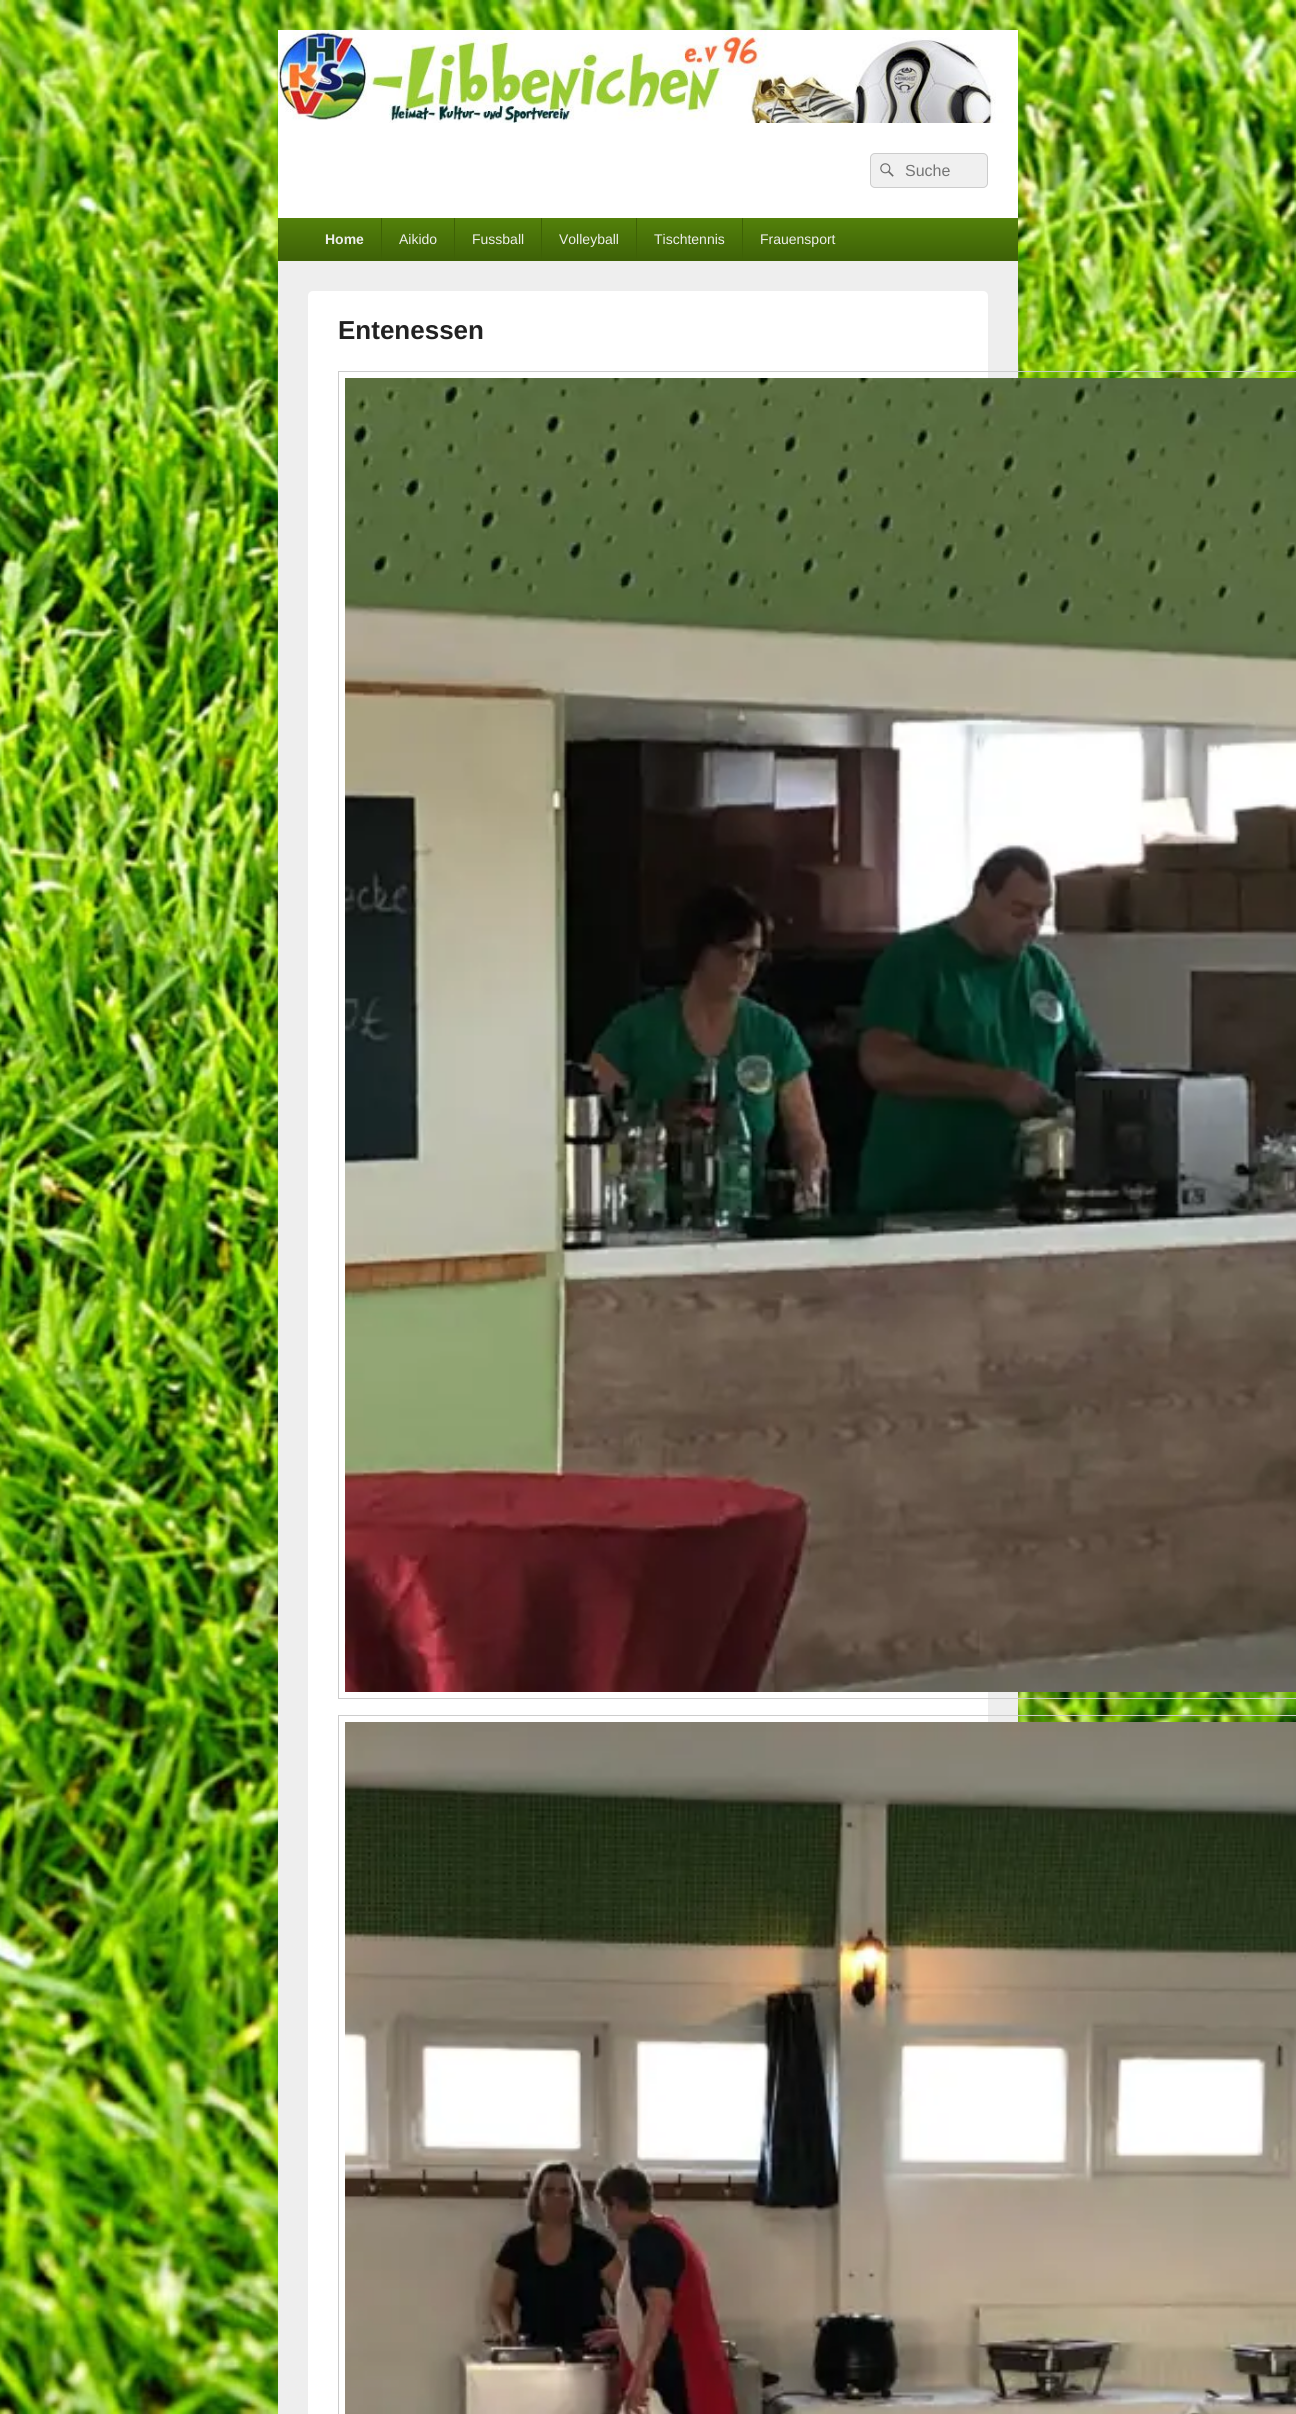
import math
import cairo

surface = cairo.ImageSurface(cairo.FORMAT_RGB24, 1296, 2414)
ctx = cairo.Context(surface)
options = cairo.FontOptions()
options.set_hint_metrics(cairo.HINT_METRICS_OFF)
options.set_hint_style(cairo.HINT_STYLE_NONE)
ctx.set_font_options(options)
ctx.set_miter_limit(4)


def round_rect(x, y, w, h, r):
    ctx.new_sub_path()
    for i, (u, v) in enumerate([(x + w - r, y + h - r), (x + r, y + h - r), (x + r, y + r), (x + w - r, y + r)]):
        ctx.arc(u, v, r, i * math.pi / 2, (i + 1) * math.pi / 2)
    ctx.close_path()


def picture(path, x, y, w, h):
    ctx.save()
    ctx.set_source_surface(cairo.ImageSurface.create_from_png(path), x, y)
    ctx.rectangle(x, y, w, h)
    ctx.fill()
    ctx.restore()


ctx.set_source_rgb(1, 1, 1)
ctx.paint()
picture("img1.png", 0, 0, 1296, 2414)
ctx.set_source_rgb(0.933, 0.933, 0.933)
ctx.rectangle(278, 261, 740, 2153)
ctx.fill()
ctx.set_source_rgb(1, 1, 1)
ctx.rectangle(278, 123, 740, 95)
ctx.fill()
picture("img2.png", 278, 30, 740, 93)
ctx.set_source_rgb(0.941, 0.941, 0.941)
round_rect(870.5, 153.5, 117, 34, 4.5)
ctx.fill_preserve()
ctx.set_source_rgb(0.8, 0.8, 0.8)
ctx.set_line_width(1)
ctx.stroke()
picture("img3.png", 880, 163, 14, 14)
ctx.select_font_face("Liberation Sans")
ctx.set_font_size(16)
ctx.set_source_rgb(0.459, 0.459, 0.459)
ctx.move_to(905, 176)
ctx.show_text("Suche")
gradient = cairo.LinearGradient(648, 218, 648, 260)
gradient.add_color_stop_rgba(0, 0.325, 0.506, 0.039, 1)
gradient.add_color_stop_rgba(1, 0.243, 0.38, 0.027, 1)
ctx.set_source(gradient)
ctx.rectangle(278, 218, 740, 42)
ctx.fill()
ctx.set_source_rgb(0.243, 0.38, 0.027)
ctx.rectangle(278, 260, 740, 1)
ctx.fill()
ctx.select_font_face("Liberation Sans", cairo.FONT_SLANT_NORMAL, cairo.FONT_WEIGHT_BOLD)
ctx.set_font_size(14)
ctx.set_source_rgb(0.933, 0.933, 0.933)
ctx.move_to(325, 244)
ctx.show_text("Home")
ctx.set_source_rgb(0.243, 0.38, 0.027)
ctx.rectangle(381, 218, 1, 42)
ctx.fill()
ctx.select_font_face("Liberation Sans")
ctx.set_source_rgb(0.933, 0.933, 0.933)
ctx.move_to(399, 244)
ctx.show_text("Aikido")
ctx.set_source_rgb(0.243, 0.38, 0.027)
ctx.rectangle(454, 218, 1, 42)
ctx.fill()
ctx.set_source_rgb(0.933, 0.933, 0.933)
ctx.move_to(472, 244)
ctx.show_text("Fussball")
ctx.set_source_rgb(0.243, 0.38, 0.027)
ctx.rectangle(541, 218, 1, 42)
ctx.fill()
ctx.set_source_rgb(0.933, 0.933, 0.933)
ctx.move_to(559, 244)
ctx.show_text("Volleyball")
ctx.set_source_rgb(0.243, 0.38, 0.027)
ctx.rectangle(636, 218, 1, 42)
ctx.fill()
ctx.set_source_rgb(0.933, 0.933, 0.933)
ctx.move_to(654, 244)
ctx.show_text("Tischtennis")
ctx.set_source_rgb(0.243, 0.38, 0.027)
ctx.rectangle(742, 218, 1, 42)
ctx.fill()
ctx.set_source_rgb(0.933, 0.933, 0.933)
ctx.move_to(760, 244)
ctx.show_text("Frauensport")
ctx.set_source_rgb(1, 1, 1)
round_rect(308, 291, 680, 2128, 5)
ctx.fill()
ctx.select_font_face("Liberation Sans", cairo.FONT_SLANT_NORMAL, cairo.FONT_WEIGHT_BOLD)
ctx.set_font_size(26)
ctx.set_source_rgb(0.133, 0.133, 0.133)
ctx.move_to(338, 339)
ctx.show_text("Entenessen")
ctx.rectangle(338.5, 371.5, 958, 1327)
ctx.set_source_rgb(0.8, 0.8, 0.8)
ctx.stroke()
picture("img4.png", 345, 378, 951, 1314)
ctx.rectangle(338.5, 1715.5, 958, 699)
ctx.stroke()
picture("img5.png", 345, 1722, 951, 692)
surface.write_to_png("page.png")
